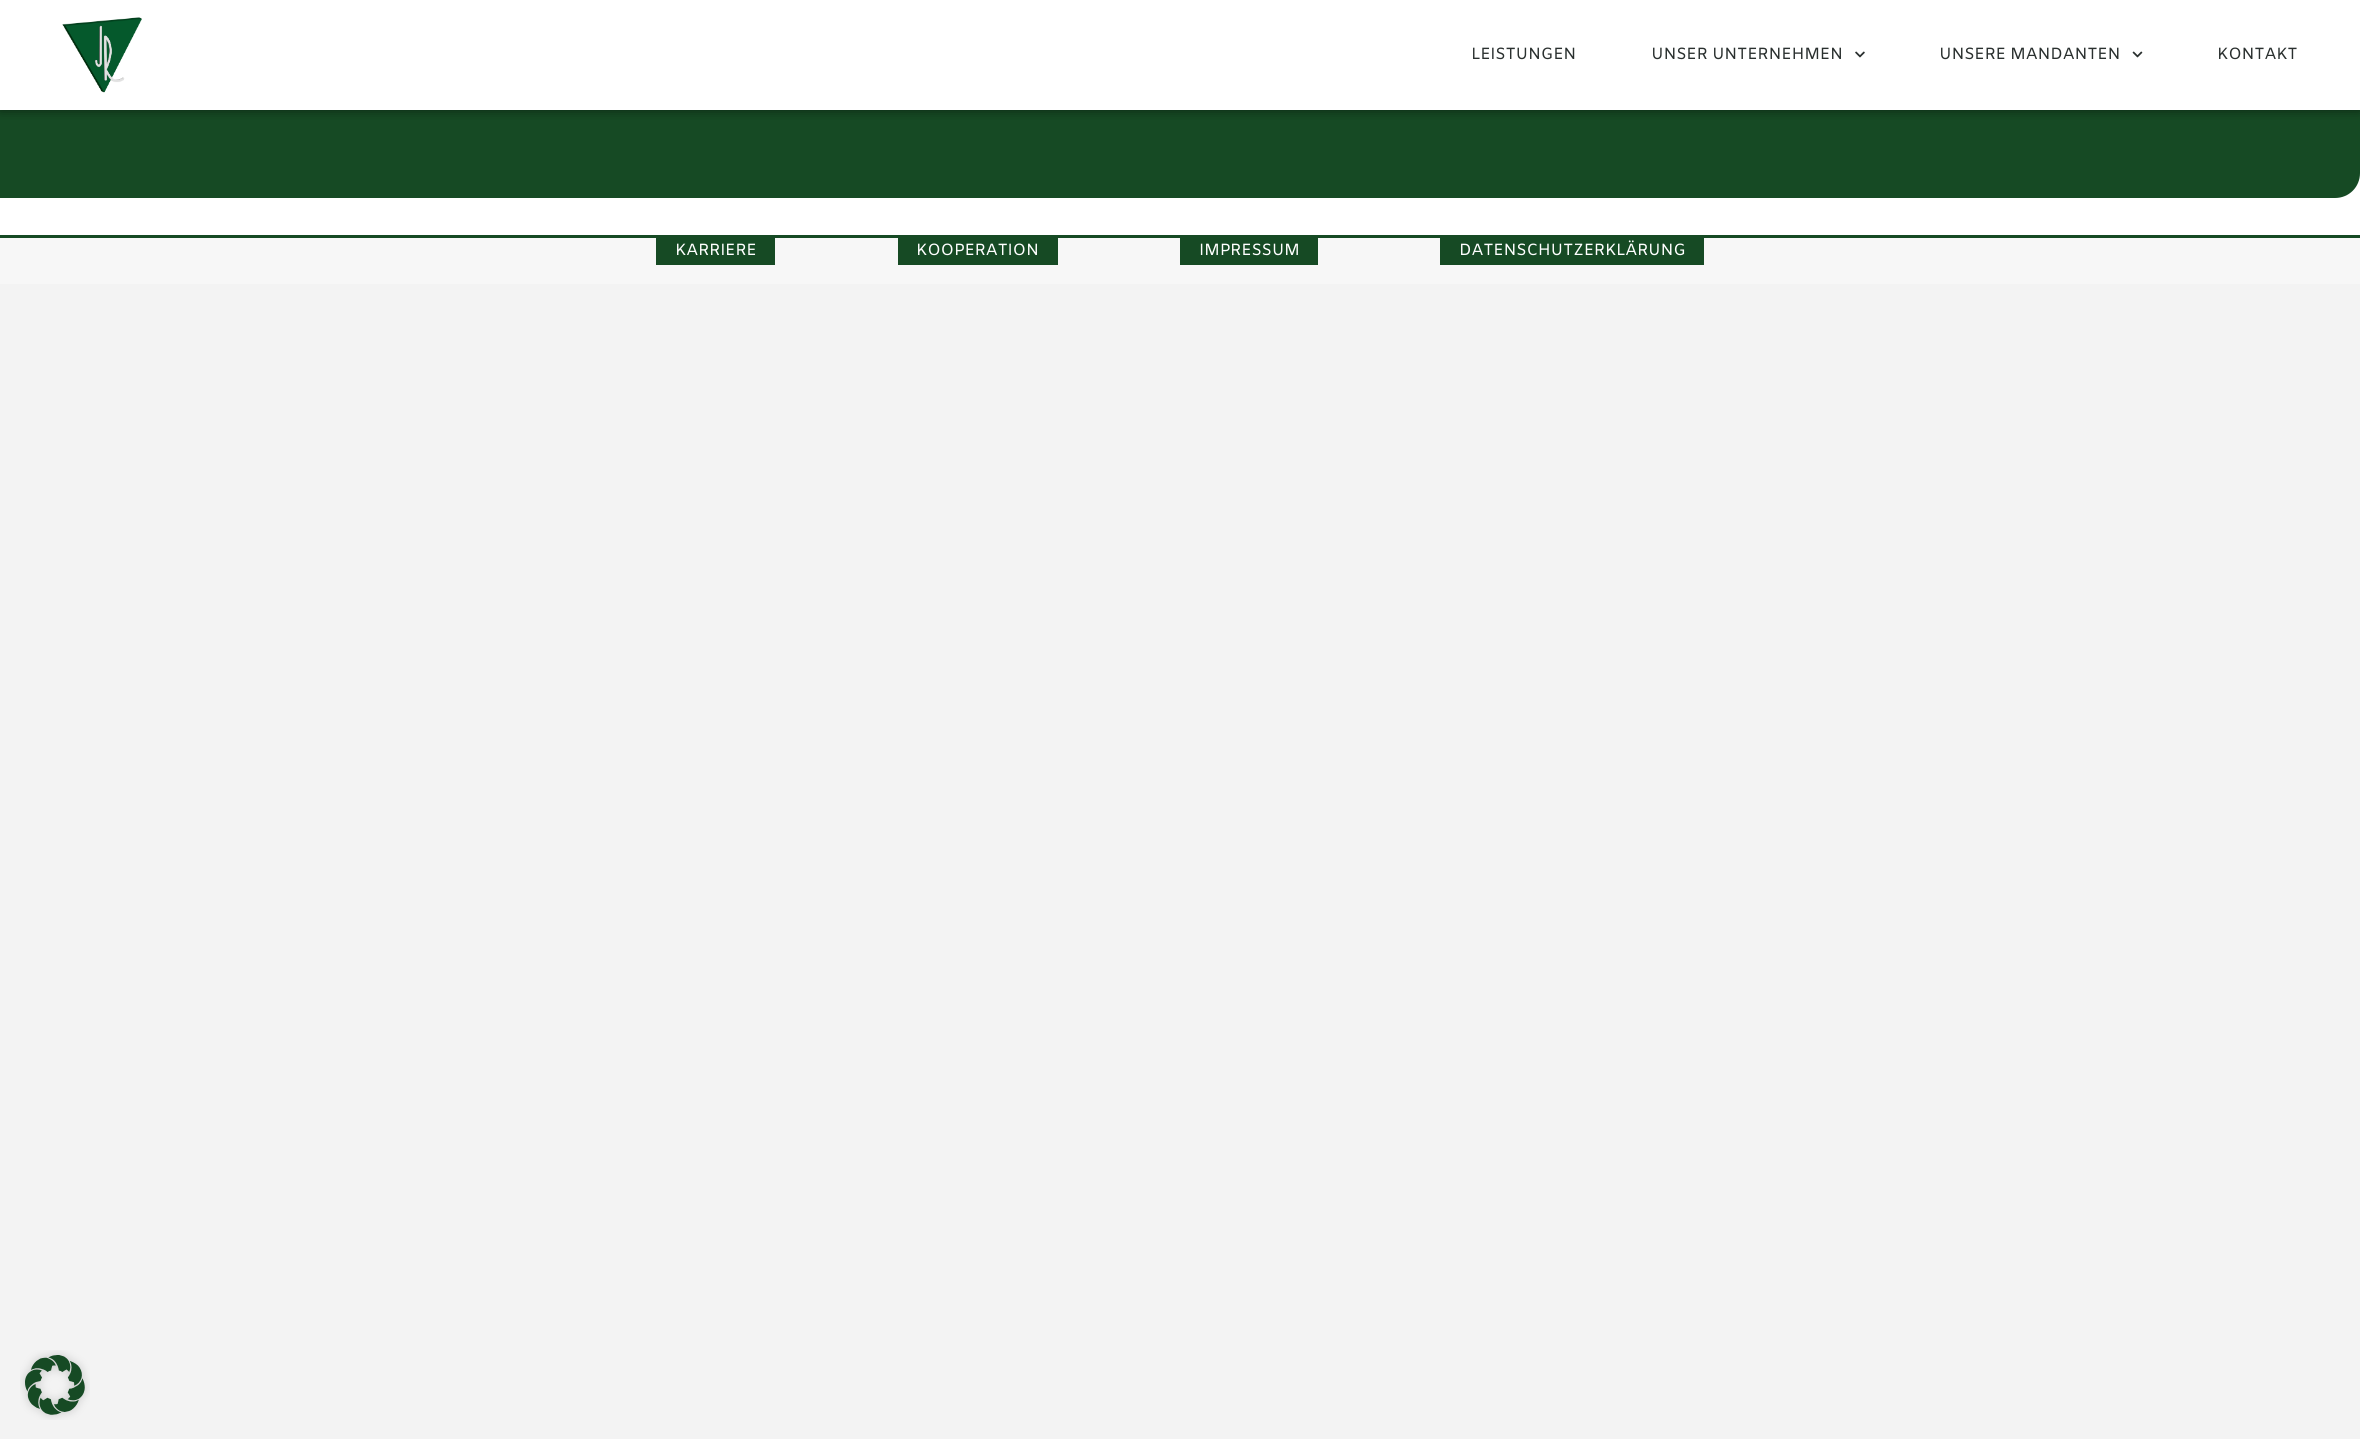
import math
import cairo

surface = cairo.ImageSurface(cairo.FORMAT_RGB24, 2360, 1439)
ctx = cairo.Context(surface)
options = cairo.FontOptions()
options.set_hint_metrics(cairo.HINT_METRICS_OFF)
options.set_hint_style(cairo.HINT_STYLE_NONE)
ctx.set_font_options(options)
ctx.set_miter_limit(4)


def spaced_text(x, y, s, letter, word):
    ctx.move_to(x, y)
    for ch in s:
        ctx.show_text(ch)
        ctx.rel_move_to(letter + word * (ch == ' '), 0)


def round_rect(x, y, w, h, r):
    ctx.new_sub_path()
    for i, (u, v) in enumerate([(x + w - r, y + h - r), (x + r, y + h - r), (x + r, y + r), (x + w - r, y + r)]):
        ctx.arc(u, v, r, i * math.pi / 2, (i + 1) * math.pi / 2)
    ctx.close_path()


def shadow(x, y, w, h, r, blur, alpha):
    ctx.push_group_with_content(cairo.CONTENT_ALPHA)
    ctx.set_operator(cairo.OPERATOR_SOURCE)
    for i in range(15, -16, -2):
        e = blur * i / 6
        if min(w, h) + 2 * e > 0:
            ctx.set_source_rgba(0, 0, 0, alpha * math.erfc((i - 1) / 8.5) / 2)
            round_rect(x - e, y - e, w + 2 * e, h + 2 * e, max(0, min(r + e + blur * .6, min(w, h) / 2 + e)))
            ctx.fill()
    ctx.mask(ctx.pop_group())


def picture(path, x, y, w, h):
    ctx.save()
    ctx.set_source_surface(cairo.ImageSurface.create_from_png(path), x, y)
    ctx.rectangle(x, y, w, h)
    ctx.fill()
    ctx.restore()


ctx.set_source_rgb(0.953, 0.953, 0.953)
ctx.paint()
ctx.set_source_rgb(1, 1, 1)
ctx.rectangle(0, 0, 2360, 235)
ctx.fill()
ctx.set_source_rgb(0.086, 0.29, 0.141)
ctx.new_path()
ctx.move_to(0, 110)
ctx.line_to(2360, 110)
ctx.line_to(2360, 173)
ctx.curve_to(2360, 187, 2349, 198, 2335, 198)
ctx.line_to(0, 198)
ctx.close_path()
ctx.fill()
ctx.save()
ctx.rectangle(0, 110, 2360, 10)
ctx.clip()
ctx.set_source_rgb(0, 0, 0)
shadow(0, 0, 2360, 110, 0, 6, 0.5)
ctx.restore()
picture("img1.png", 62, 17, 80, 76)
ctx.select_font_face("Amiko")
ctx.set_font_size(16.25)
ctx.set_source_rgb(0.165, 0.188, 0.184)
spaced_text(1471, 59, "LEISTUNGEN", -0.25, 0)
spaced_text(1651, 59, "UNSER UNTERNEHMEN", -0.25, 0)
picture("img2.png", 1855, 51, 10, 7)
spaced_text(1939, 59, "UNSERE MANDANTEN", -0.25, 0)
picture("img3.png", 2132, 51, 11, 7)
spaced_text(2217, 59, "KONTAKT", -0.25, 0)
ctx.set_source_rgb(0.965, 0.965, 0.965)
ctx.rectangle(0, 238, 2360, 46)
ctx.fill()
ctx.set_source_rgb(0.086, 0.29, 0.141)
ctx.rectangle(0, 235, 2360, 3)
ctx.fill()
ctx.rectangle(656, 238, 119, 27)
ctx.fill()
ctx.set_source_rgb(1, 1, 1)
spaced_text(675, 255, "KARRIERE", -0.25, 0)
ctx.set_source_rgb(0.086, 0.29, 0.141)
ctx.rectangle(898, 238, 160, 27)
ctx.fill()
ctx.set_source_rgb(1, 1, 1)
spaced_text(916, 255, "KOOPERATION", -0.25, 0)
ctx.set_source_rgb(0.086, 0.29, 0.141)
ctx.rectangle(1180, 238, 138, 27)
ctx.fill()
ctx.set_source_rgb(1, 1, 1)
spaced_text(1199, 255, "IMPRESSUM", -0.25, 0)
ctx.set_source_rgb(0.086, 0.29, 0.141)
ctx.rectangle(1440, 238, 264, 27)
ctx.fill()
ctx.set_source_rgb(1, 1, 1)
spaced_text(1459, 255, "DATENSCHUTZERKLÄRUNG", -0.25, 0)
picture("img4.png", 20, 1350, 70, 70)
surface.write_to_png("page.png")
